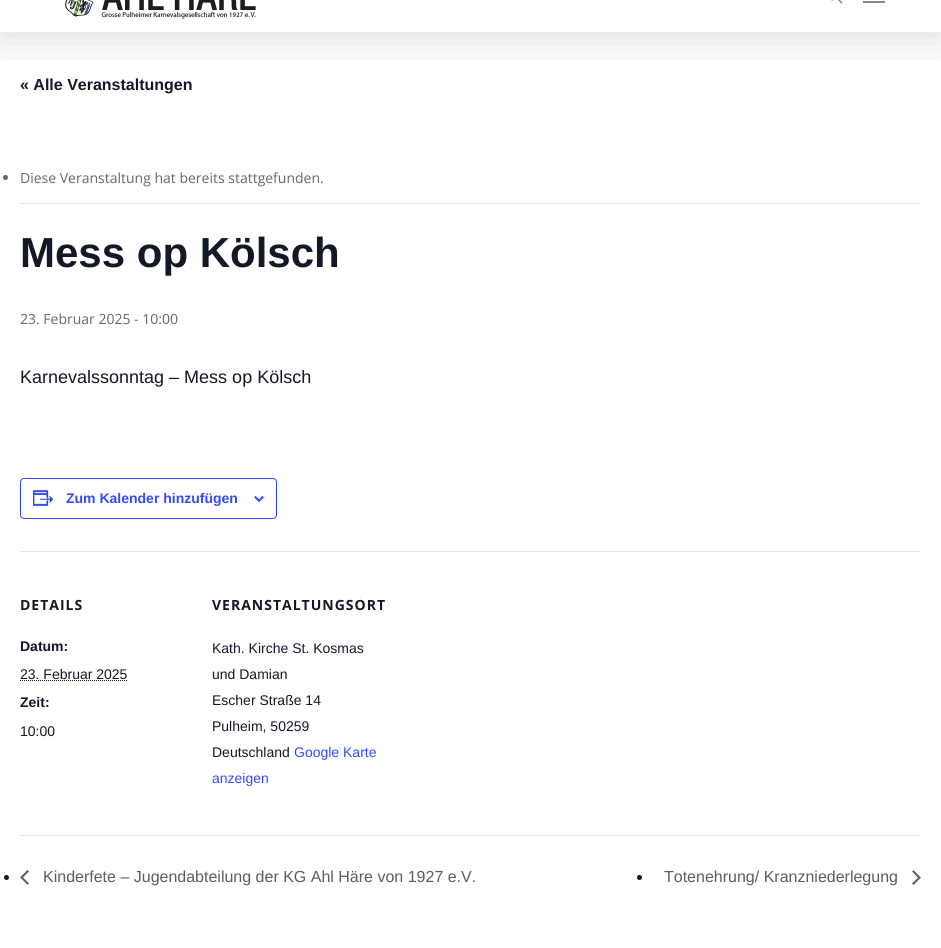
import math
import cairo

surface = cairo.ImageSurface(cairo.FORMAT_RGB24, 941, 948)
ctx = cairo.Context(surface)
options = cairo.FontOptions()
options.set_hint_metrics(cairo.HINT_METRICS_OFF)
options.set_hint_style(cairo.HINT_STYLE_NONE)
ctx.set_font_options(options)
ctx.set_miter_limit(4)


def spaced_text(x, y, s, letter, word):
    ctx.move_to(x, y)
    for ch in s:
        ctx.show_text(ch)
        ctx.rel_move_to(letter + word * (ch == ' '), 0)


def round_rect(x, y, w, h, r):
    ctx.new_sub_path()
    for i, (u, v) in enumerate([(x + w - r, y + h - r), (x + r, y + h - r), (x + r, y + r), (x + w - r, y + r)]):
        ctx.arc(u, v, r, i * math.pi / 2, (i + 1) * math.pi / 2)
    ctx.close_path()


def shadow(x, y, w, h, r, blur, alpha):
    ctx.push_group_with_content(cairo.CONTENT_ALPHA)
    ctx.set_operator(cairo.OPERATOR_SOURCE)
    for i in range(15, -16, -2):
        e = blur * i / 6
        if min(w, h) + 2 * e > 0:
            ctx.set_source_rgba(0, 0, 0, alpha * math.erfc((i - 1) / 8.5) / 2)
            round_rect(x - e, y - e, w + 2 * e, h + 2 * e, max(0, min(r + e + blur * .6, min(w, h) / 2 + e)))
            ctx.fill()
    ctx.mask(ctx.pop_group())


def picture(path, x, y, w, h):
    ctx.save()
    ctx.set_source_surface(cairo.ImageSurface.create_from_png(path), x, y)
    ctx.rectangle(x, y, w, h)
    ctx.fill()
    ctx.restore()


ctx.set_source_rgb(1, 1, 1)
ctx.paint()
ctx.save()
ctx.rectangle(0, 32, 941, 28)
ctx.clip()
ctx.set_source_rgb(0, 0, 0)
shadow(0, -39, 941, 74, 0, 22.5, 0.15)
ctx.restore()
picture("img1.png", 65, 0, 191, 19)
picture("img2.png", 830, 0, 13, 4)
ctx.set_source_rgb(0.533, 0.533, 0.533)
ctx.rectangle(863, 1, 22, 2)
ctx.fill()
ctx.select_font_face("Liberation Sans", cairo.FONT_SLANT_NORMAL, cairo.FONT_WEIGHT_BOLD)
ctx.set_font_size(16)
ctx.set_source_rgb(0.078, 0.094, 0.153)
ctx.move_to(20, 90)
ctx.show_text("« Alle Veranstaltungen")
ctx.set_source_rgb(0.894, 0.894, 0.894)
ctx.rectangle(20, 203, 901, 1)
ctx.fill()
ctx.set_source_rgb(0.404, 0.404, 0.404)
ctx.arc(5.5, 177.5, 2.5, 0, 2 * math.pi)
ctx.fill()
ctx.select_font_face("Open Sans")
ctx.set_font_size(14)
ctx.move_to(20, 183)
ctx.show_text("Diese Veranstaltung hat bereits stattgefunden.")
ctx.select_font_face("Liberation Sans", cairo.FONT_SLANT_NORMAL, cairo.FONT_WEIGHT_BOLD)
ctx.set_font_size(42)
ctx.set_source_rgb(0.078, 0.094, 0.153)
ctx.move_to(20, 267)
ctx.show_text("Mess op Kölsch")
ctx.select_font_face("Open Sans")
ctx.set_font_size(14)
ctx.set_source_rgb(0.404, 0.404, 0.404)
ctx.move_to(20, 324)
ctx.show_text("23. Februar 2025 - 10:00")
ctx.select_font_face("Liberation Sans")
ctx.set_font_size(18)
ctx.set_source_rgb(0.078, 0.094, 0.153)
ctx.move_to(20, 383)
ctx.show_text("Karnevalssonntag – Mess op Kölsch")
round_rect(20.5, 478.5, 256, 40, 3.5)
ctx.set_source_rgb(0.2, 0.29, 1)
ctx.set_line_width(1)
ctx.stroke()
picture("img3.png", 33, 490, 21, 16)
ctx.select_font_face("Liberation Sans", cairo.FONT_SLANT_NORMAL, cairo.FONT_WEIGHT_BOLD)
ctx.set_font_size(14)
ctx.move_to(66, 503)
ctx.show_text("Zum Kalender hinzufügen")
picture("img4.png", 254, 496, 10, 6)
ctx.set_source_rgb(0.894, 0.894, 0.894)
ctx.rectangle(20, 551, 901, 1)
ctx.fill()
ctx.select_font_face("Open Sans", cairo.FONT_SLANT_NORMAL, cairo.FONT_WEIGHT_BOLD)
ctx.set_source_rgb(0.078, 0.094, 0.153)
spaced_text(20, 610, "DETAILS", 1, 0)
ctx.select_font_face("Liberation Sans", cairo.FONT_SLANT_NORMAL, cairo.FONT_WEIGHT_BOLD)
ctx.move_to(20, 651)
ctx.show_text("Datum:")
ctx.select_font_face("Liberation Sans")
ctx.move_to(20, 679)
ctx.show_text("23. Februar 2025")
ctx.new_path()
ctx.move_to(20, 680.5)
ctx.line_to(127.5, 680.5)
ctx.set_dash([1, 1])
ctx.stroke()
ctx.select_font_face("Liberation Sans", cairo.FONT_SLANT_NORMAL, cairo.FONT_WEIGHT_BOLD)
ctx.move_to(20, 707)
ctx.show_text("Zeit:")
ctx.select_font_face("Liberation Sans")
ctx.move_to(20, 736)
ctx.show_text("10:00")
ctx.select_font_face("Open Sans", cairo.FONT_SLANT_NORMAL, cairo.FONT_WEIGHT_BOLD)
spaced_text(212, 610, "VERANSTALTUNGSORT", 1, 0)
ctx.select_font_face("Liberation Sans")
ctx.move_to(212, 653)
ctx.show_text("Kath. Kirche St. Kosmas")
ctx.move_to(212, 679)
ctx.show_text("und Damian")
ctx.move_to(212, 705)
ctx.show_text("Escher Straße 14")
ctx.move_to(212, 731)
ctx.show_text("Pulheim, 50259")
ctx.move_to(212, 757)
ctx.show_text("Deutschland")
ctx.set_source_rgb(0.2, 0.29, 1)
ctx.move_to(294, 757)
ctx.show_text("Google Karte")
ctx.move_to(212, 783)
ctx.show_text("anzeigen")
ctx.set_source_rgb(0.894, 0.894, 0.894)
ctx.rectangle(20, 835, 901, 1)
ctx.fill()
ctx.set_source_rgb(0.078, 0.094, 0.153)
ctx.arc(6.5, 877.5, 2.5, 0, 2 * math.pi)
ctx.fill()
picture("img5.png", 20, 870, 9, 15)
ctx.set_font_size(16)
ctx.set_source_rgb(0.365, 0.365, 0.365)
ctx.move_to(43, 882)
ctx.show_text("Kinderfete – Jugendabteilung der KG Ahl Häre von 1927 e.V.")
ctx.set_source_rgb(0.078, 0.094, 0.153)
ctx.new_path()
ctx.arc(639.5, 877.5, 2.5, 0, 2 * math.pi)
ctx.fill()
ctx.set_source_rgb(0.365, 0.365, 0.365)
ctx.move_to(664, 882)
ctx.show_text("Totenehrung/ Kranzniederlegung")
picture("img6.png", 912, 870, 9, 15)
surface.write_to_png("page.png")
